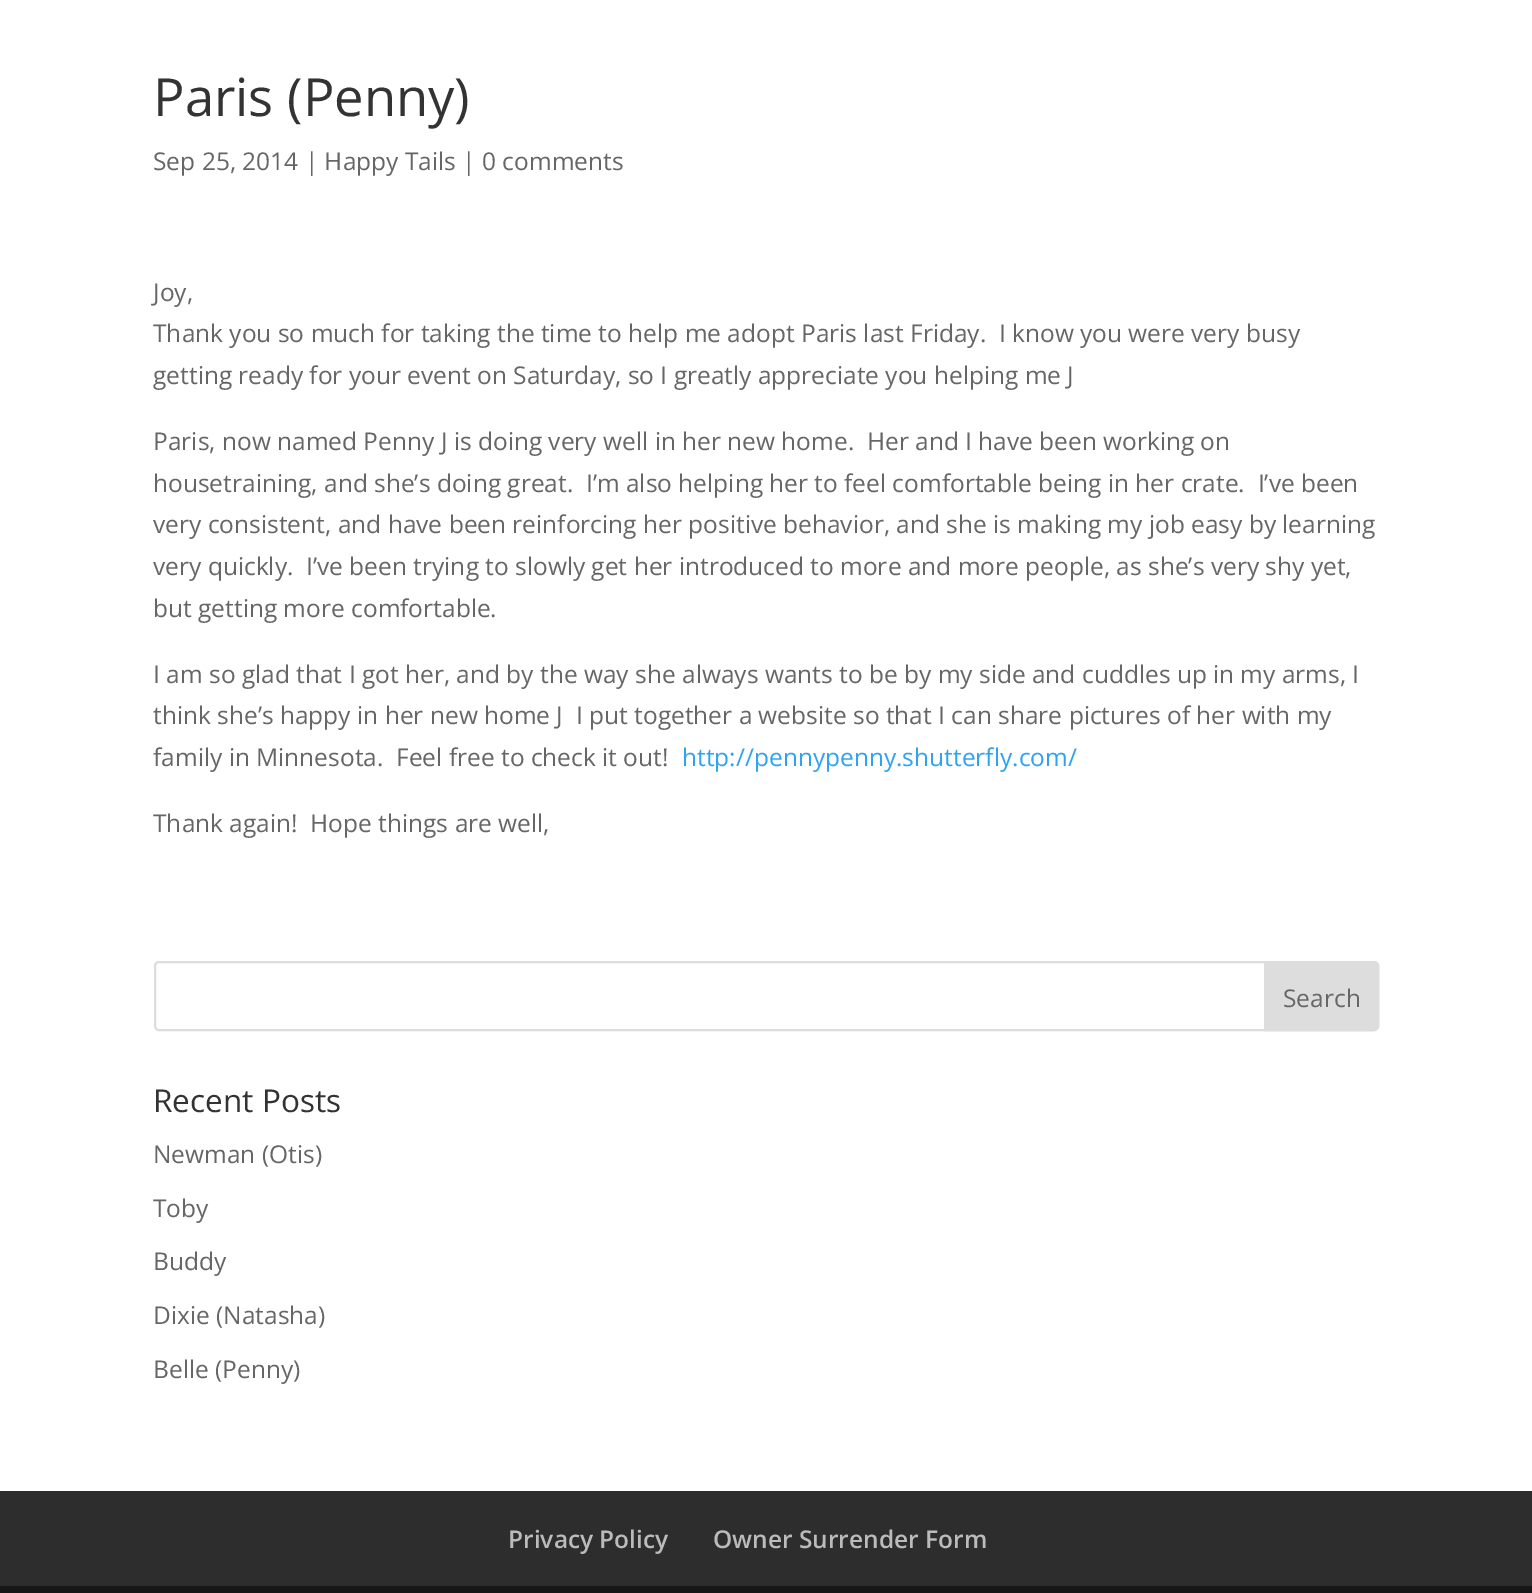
%!PS-Adobe-3.0
%%BoundingBox: 0 0 1532 1593
%%LanguageLevel: 3
%%Pages: 1
%%EndComments
%%BeginProlog
/setink { 3 { 255 div 3 1 roll } repeat setrgbcolor } def
/usefont { [ exch dup neg 0 0 3 -1 roll 0 0 ] selectfont } def
/drawtext { setink usefont moveto show } def
/fillbox { setink rectfill } def
/rrect { 5 dict begin { /r /h /w /y /x } { exch def } forall
  x r add y moveto x w add y 2 copy h add r arct x w add y h add x 1 index r arct
  x y h add x y r arct x y 2 copy exch w add exch r arct closepath end } def
%%EndProlog
%%BeginSetup
<< /PageSize [1532 1593] >> setpagedevice
%%EndSetup
%%Page: 1 1
0 1593 translate 1 -1 scale
4 setmiterlimit
0 0 1532 1593 255 255 255 fillbox
(Paris \(Penny\)) 153 116 /OpenSans-Regular 52.5 51 51 51 drawtext
(Sep 25, 2014 | Happy Tails | 0 comments) 153 170 /OpenSans-Regular 24.5 102 102 102 drawtext
(Joy,) 153 301 /OpenSans-Regular 24.5 102 102 102 drawtext
(Thank you so much for taking the time to help me adopt Paris last Friday.  I know you were very busy) 153 342 /OpenSans-Regular 24.5 102 102 102 drawtext
(getting ready for your event on Saturday, so I greatly appreciate you helping me J) 153 384 /OpenSans-Regular 24.5 102 102 102 drawtext
(Paris, now named Penny J is doing very well in her new home.  Her and I have been working on) 153 450 /OpenSans-Regular 24.5 102 102 102 drawtext
(housetraining, and she’s doing great.  I’m also helping her to feel comfortable being in her crate.  I’ve been) 153 492 /OpenSans-Regular 24.5 102 102 102 drawtext
(very consistent, and have been reinforcing her positive behavior, and she is making my job easy by learning) 153 533 /OpenSans-Regular 24.5 102 102 102 drawtext
(very quickly.  I’ve been trying to slowly get her introduced to more and more people, as she’s very shy yet,) 153 575 /OpenSans-Regular 24.5 102 102 102 drawtext
(but getting more comfortable.) 153 617 /OpenSans-Regular 24.5 102 102 102 drawtext
(I am so glad that I got her, and by the way she always wants to be by my side and cuddles up in my arms, I) 153 683 /OpenSans-Regular 24.5 102 102 102 drawtext
(think she’s happy in her new home J  I put together a website so that I can share pictures of her with my) 153 724 /OpenSans-Regular 24.5 102 102 102 drawtext
(family in Minnesota.  Feel free to check it out!) 153 766 /OpenSans-Regular 24.5 102 102 102 drawtext
(http://pennypenny.shutterfly.com/) 682 766 /OpenSans-Regular 24.5 46 163 242 drawtext
(Thank again!  Hope things are well,) 153 832 /OpenSans-Regular 24.5 102 102 102 drawtext
221 221 221 setink
2 setlinewidth
155 962 1223 68 4 rrect stroke
1265 962 moveto 1374 962 lineto 1376 962 1378 964 1378 966 curveto 1378 1026 lineto 1378 1028 1376 1030 1374 1030 curveto 1265 1030 lineto closepath gsave fill grestore
stroke
(Search) 1283 1007 /OpenSans-Regular 24.5 102 102 102 drawtext
(Recent Posts) 153 1112 /OpenSans-Regular 31.5 51 51 51 drawtext
(Newman \(Otis\)) 153 1163 /OpenSans-Regular 24.5 102 102 102 drawtext
(Toby) 153 1217 /OpenSans-Regular 24.5 102 102 102 drawtext
(Buddy) 153 1270 /OpenSans-Regular 24.5 102 102 102 drawtext
(Dixie \(Natasha\)) 153 1324 /OpenSans-Regular 24.5 102 102 102 drawtext
(Belle \(Penny\)) 153 1378 /OpenSans-Regular 24.5 102 102 102 drawtext
0 1491 1532 95 45 45 45 fillbox
(Privacy Policy) 508 1548 /OpenSans-SemiBold 24.5 187 187 187 drawtext
(Owner Surrender Form) 713 1548 /OpenSans-SemiBold 24.5 187 187 187 drawtext
0 1586 1532 7 23 23 23 fillbox
showpage
%%EOF
